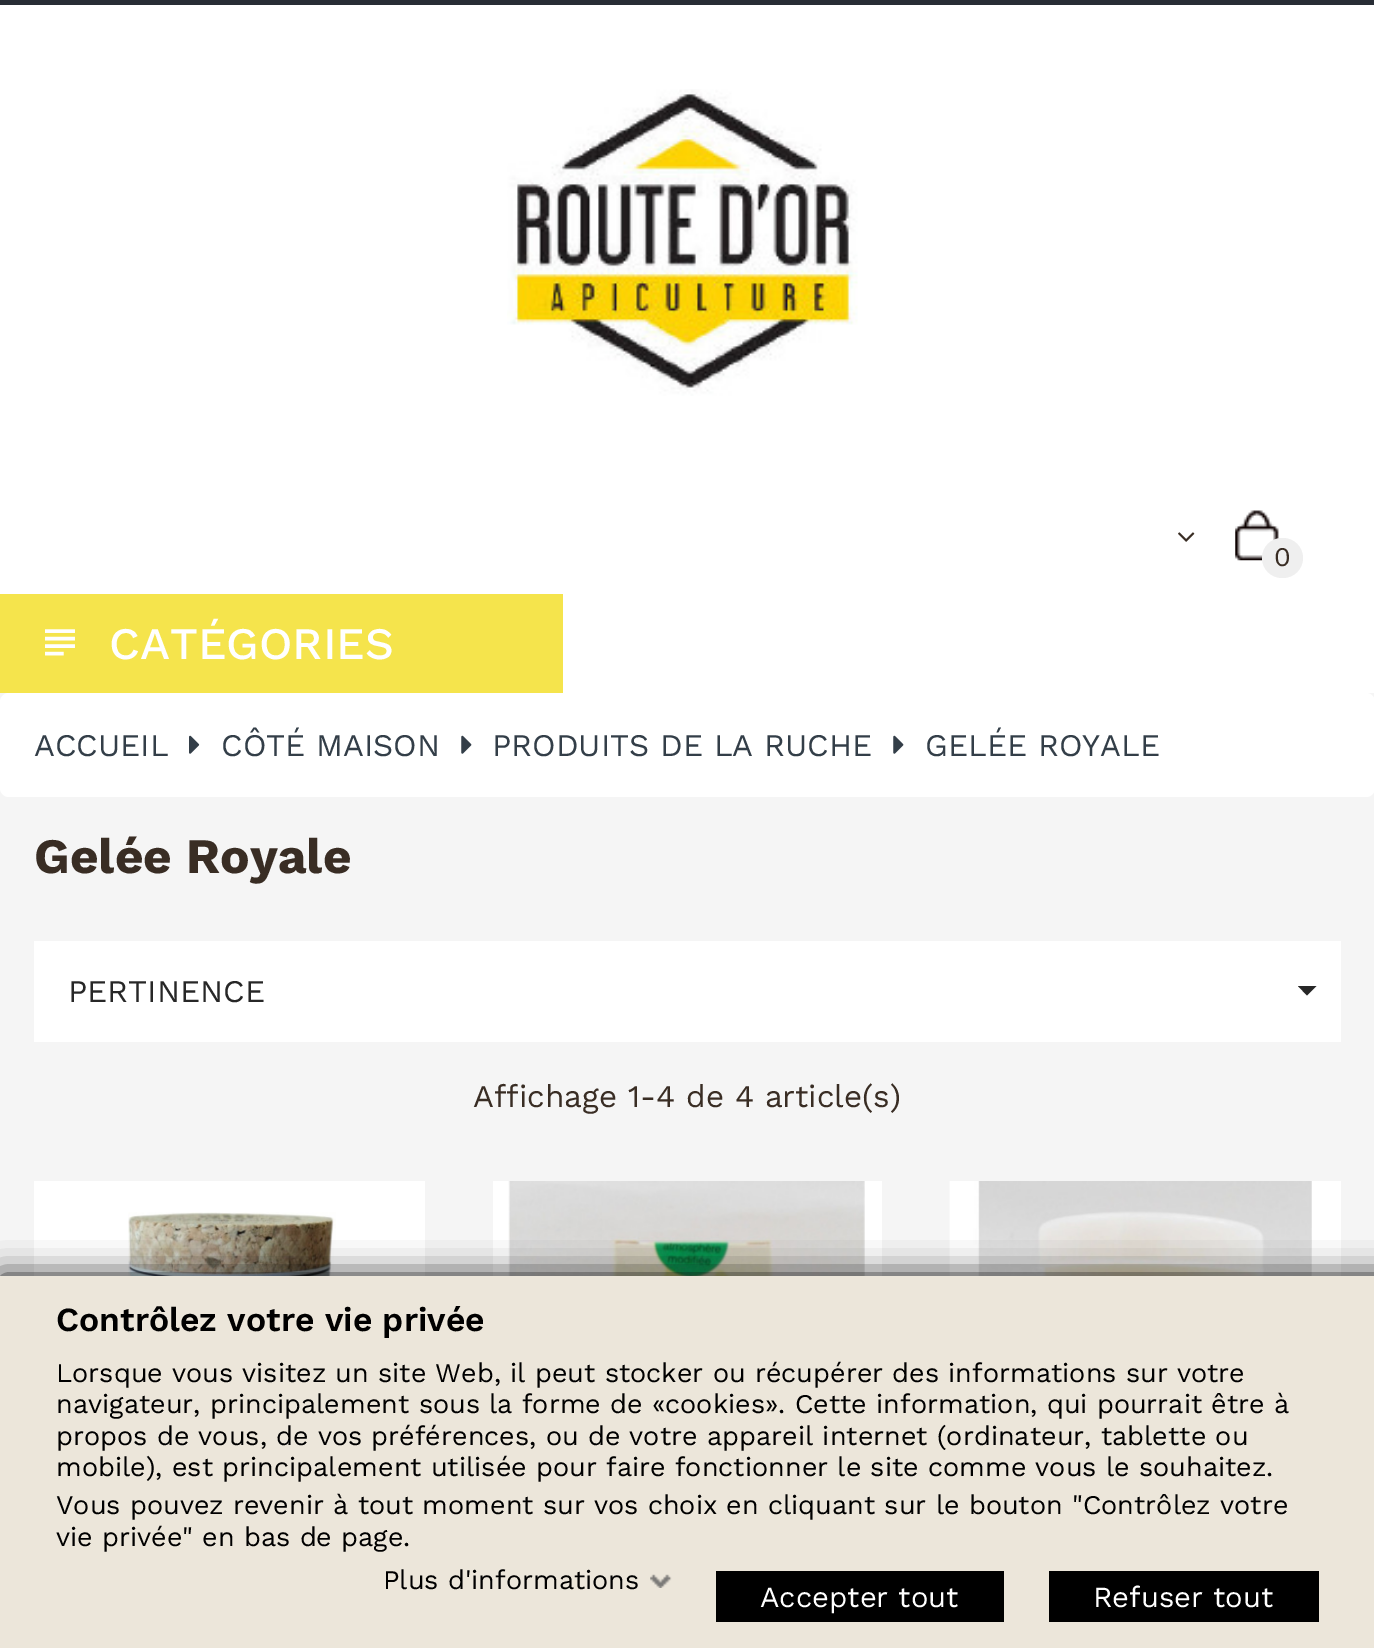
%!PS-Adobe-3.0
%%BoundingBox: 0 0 1374 1648
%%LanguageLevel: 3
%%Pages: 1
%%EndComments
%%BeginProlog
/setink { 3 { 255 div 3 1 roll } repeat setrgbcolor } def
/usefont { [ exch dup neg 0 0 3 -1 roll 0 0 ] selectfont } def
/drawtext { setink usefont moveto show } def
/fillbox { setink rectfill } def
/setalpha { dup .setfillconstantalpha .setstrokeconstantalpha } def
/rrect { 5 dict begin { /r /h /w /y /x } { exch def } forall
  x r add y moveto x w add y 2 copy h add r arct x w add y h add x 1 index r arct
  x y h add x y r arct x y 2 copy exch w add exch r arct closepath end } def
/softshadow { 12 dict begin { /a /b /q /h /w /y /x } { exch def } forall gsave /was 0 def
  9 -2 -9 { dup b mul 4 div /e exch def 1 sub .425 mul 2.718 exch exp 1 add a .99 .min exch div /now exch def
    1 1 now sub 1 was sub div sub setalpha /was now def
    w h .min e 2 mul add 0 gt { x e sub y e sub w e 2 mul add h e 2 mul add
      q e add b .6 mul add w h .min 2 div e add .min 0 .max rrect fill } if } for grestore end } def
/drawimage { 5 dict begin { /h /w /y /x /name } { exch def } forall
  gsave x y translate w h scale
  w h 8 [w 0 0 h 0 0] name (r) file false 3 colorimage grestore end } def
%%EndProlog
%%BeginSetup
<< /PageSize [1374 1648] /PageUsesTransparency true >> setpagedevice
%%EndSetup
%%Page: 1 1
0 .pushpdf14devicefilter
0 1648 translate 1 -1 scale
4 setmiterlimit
0 0 1374 1648 255 255 255 fillbox
0 0 1374 5 40 45 53 fillbox
(assets/img1.rgb) 507 89 351 307 drawimage
(assets/img2.rgb) 1178 532 17 10 drawimage
(assets/img3.rgb) 1235 510 44 51 drawimage
239 239 239 setink
1262 538 41 40 20 rrect fill
(0) 1274 566 /WorkSans-Regular 27 57 45 36 drawtext
0 594 563 99 245 228 76 fillbox
(assets/img4.rgb) 45 629 30 27 drawimage
(CATÉGORIES) 109 659 /WorkSans-Medium 45 255 255 255 drawtext
0 693 1374 583 245 245 245 fillbox
255 255 255 setink
0 693 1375 104 9 rrect fill
(ACCUEIL) 34 756 /WorkSans-Regular 31.5 51 62 72 drawtext
(assets/img5.rgb) 189 735 11 19 drawimage
(CÔTÉ MAISON) 221 756 /WorkSans-Regular 31.5 51 62 72 drawtext
(assets/img6.rgb) 461 735 11 19 drawimage
(PRODUITS DE LA RUCHE) 492 756 /WorkSans-Regular 31.5 51 62 72 drawtext
(assets/img6.rgb) 893 735 11 19 drawimage
(GELÉE ROYALE) 925 756 /WorkSans-Regular 31.5 51 62 72 drawtext
(Gelée Royale) 34 873 /WorkSans-Bold 49.5 57 45 36 drawtext
34 941 1307 101 255 255 255 fillbox
(PERTINENCE) 68 1002 /WorkSans-Regular 31.5 39 39 39 drawtext
1298 986 moveto 1316.5 986 lineto 1307 995.5 lineto closepath fill
(Affichage 1-4 de 4 article\(s\)) 473 1107 /WorkSans-Regular 31.5 57 45 36 drawtext
34 1181 391 95 255 255 255 fillbox
(assets/img7.rgb) 128 1212 208 64 drawimage
493 1181 389 95 255 255 255 fillbox
(assets/img8.rgb) 508 1181 357 95 drawimage
1312 1181 29 95 255 255 255 fillbox
(assets/img9.rgb) 949 1181 363 95 drawimage
18 18 18 setink
0 1276 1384 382 0 16 1 softshadow
0 1276 1374 372 236 230 218 fillbox
(Contrôlez votre vie privée) 56 1331 /WorkSans-SemiBold 33.75 0 0 0 drawtext
(Lorsque vous visitez un site Web, il peut stocker ou récupérer des informations sur votre) 56 1382 /WorkSans-Regular 27 0 0 0 drawtext
(navigateur, principalement sous la forme de «cookies». Cette information, qui pourrait être à) 56 1413 /WorkSans-Regular 27 0 0 0 drawtext
(propos de vous, de vos préférences, ou de votre appareil internet \(ordinateur, tablette ou) 56 1445 /WorkSans-Regular 27 0 0 0 drawtext
(mobile\), est principalement utilisée pour faire fonctionner le site comme vous le souhaitez.) 56 1476 /WorkSans-Regular 27 0 0 0 drawtext
(Vous pouvez revenir à tout moment sur vos choix en cliquant sur le bouton "Contrôlez votre) 56 1514 /WorkSans-Regular 27 0 0 0 drawtext
(vie privée" en bas de page.) 56 1546 /WorkSans-Regular 27 0 0 0 drawtext
(Plus d'informations) 383 1589 /WorkSans-Regular 27 0 0 0 drawtext
(assets/img10.rgb) 650 1574 22 14 drawimage
716 1571 288 51 0 0 0 fillbox
(Accepter tout) 760 1607 /WorkSans-Regular 29.25 255 255 255 drawtext
1049 1571 270 51 0 0 0 fillbox
(Refuser tout) 1093 1607 /WorkSans-Regular 29.25 255 255 255 drawtext
.poppdf14devicefilter showpage
%%EOF
